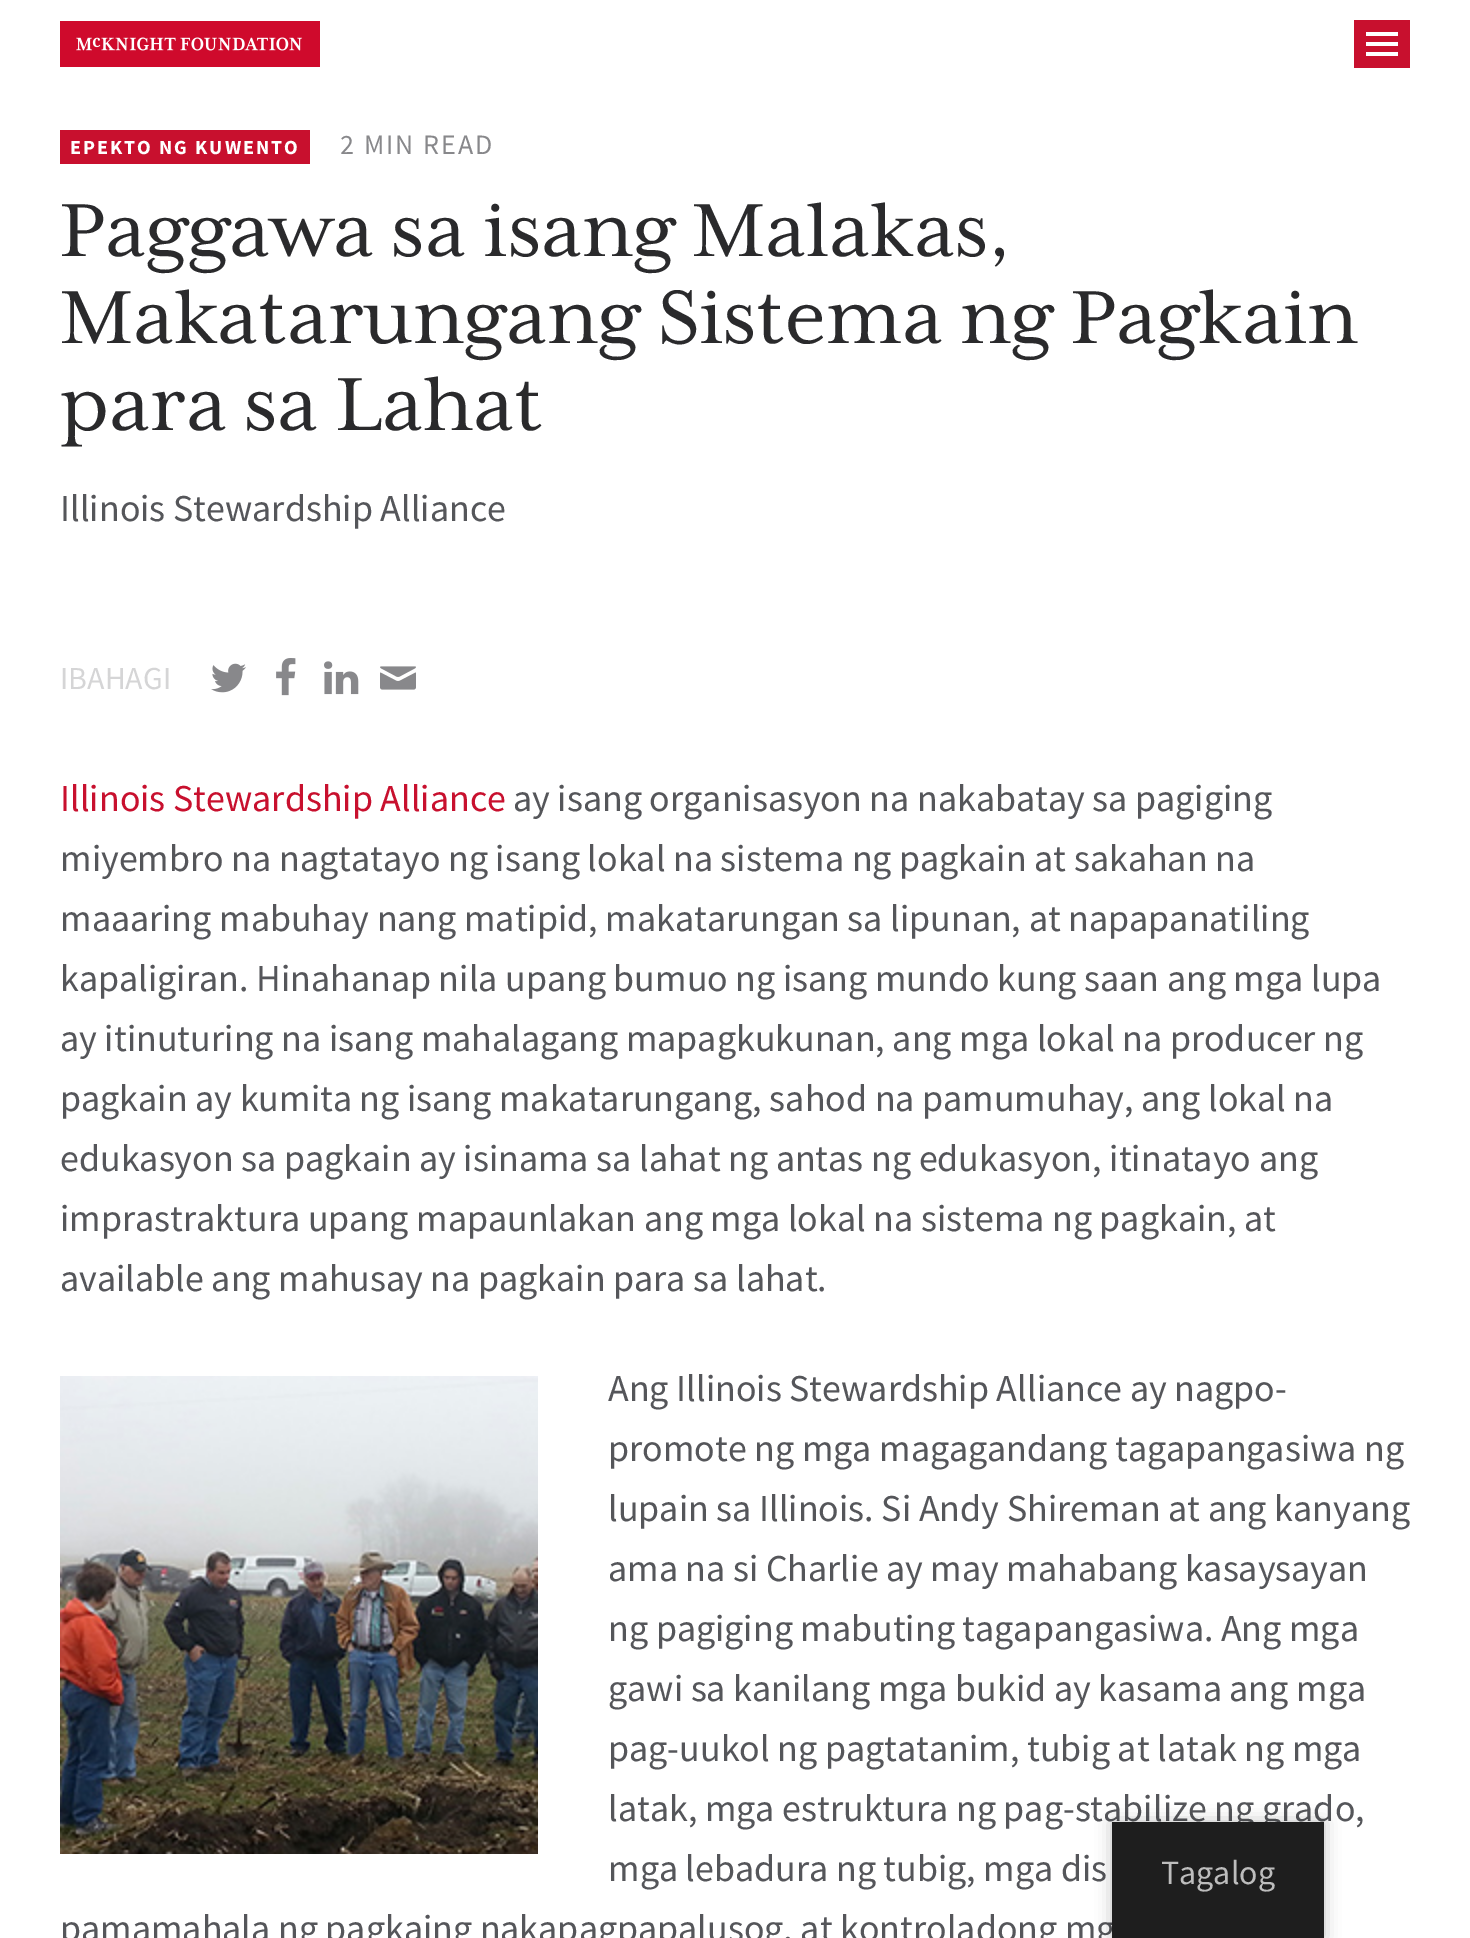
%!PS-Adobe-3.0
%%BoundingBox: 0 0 1470 1938
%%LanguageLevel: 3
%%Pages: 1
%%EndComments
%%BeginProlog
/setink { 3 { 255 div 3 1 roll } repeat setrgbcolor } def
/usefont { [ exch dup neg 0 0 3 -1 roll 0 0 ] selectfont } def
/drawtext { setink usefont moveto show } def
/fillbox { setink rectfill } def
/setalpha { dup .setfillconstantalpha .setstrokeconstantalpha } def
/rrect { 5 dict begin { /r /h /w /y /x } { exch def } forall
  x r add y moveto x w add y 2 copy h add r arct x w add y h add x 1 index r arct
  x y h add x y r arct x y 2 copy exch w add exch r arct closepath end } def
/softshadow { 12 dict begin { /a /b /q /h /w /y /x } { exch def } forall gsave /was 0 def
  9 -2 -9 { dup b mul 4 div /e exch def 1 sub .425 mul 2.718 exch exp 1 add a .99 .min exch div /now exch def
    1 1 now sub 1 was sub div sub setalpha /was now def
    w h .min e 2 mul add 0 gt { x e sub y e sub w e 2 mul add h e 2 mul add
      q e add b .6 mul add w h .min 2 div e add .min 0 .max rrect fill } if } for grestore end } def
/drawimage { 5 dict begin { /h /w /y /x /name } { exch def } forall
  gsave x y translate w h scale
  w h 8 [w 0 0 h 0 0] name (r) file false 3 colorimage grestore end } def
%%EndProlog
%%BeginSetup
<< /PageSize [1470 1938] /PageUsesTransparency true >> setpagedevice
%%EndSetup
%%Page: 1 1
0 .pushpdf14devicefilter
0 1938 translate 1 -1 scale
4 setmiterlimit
0 0 1470 1938 255 255 255 fillbox
(assets/img1.rgb) 60 21 260 46 drawimage
1354 20 56 48 200 16 46 fillbox
1366 32 32 4 255 255 255 fillbox
1366 42 32 4 255 255 255 fillbox
1366 52 32 4 255 255 255 fillbox
60 130 250 34 200 16 46 fillbox
/SourceSansPro-Bold 20 usefont
255 255 255 setink
70 154 moveto 2 0 (EPEKTO NG KUWENTO) ashow
/SourceSansPro-Regular 28 usefont
136 136 139 setink
340 154 moveto 2 0 (2 MIN READ) ashow
(Paggawa sa isang Malakas,) 60 256 /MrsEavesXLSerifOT-Regular 86.1 42 42 44 drawtext
(Makatarungang Sistema ng Pagkain) 60 343 /MrsEavesXLSerifOT-Regular 86.1 42 42 44 drawtext
(para sa Lahat) 60 430 /MrsEavesXLSerifOT-Regular 86.1 42 42 44 drawtext
(Illinois Stewardship Alliance) 60 521 /SourceSansPro-Regular 38 85 86 90 drawtext
(IBAHAGI) 60 689 /SourceSansPro-Regular 32 213 213 214 drawtext
(assets/img2.rgb) 211 663 35 30 drawimage
(assets/img3.rgb) 276 658 20 38 drawimage
(assets/img4.rgb) 324 661 35 34 drawimage
(assets/img5.rgb) 380 666 36 24 drawimage
(Illinois Stewardship Alliance) 60 811 /SourceSansPro-Regular 38 200 16 46 drawtext
(ay isang organisasyon na nakabatay sa pagiging) 513 811 /SourceSansPro-Regular 38 85 86 90 drawtext
(miyembro na nagtatayo ng isang lokal na sistema ng pagkain at sakahan na) 60 871 /SourceSansPro-Regular 38 85 86 90 drawtext
(maaaring mabuhay nang matipid, makatarungan sa lipunan, at napapanatiling) 60 931 /SourceSansPro-Regular 38 85 86 90 drawtext
(kapaligiran. Hinahanap nila upang bumuo ng isang mundo kung saan ang mga lupa) 60 991 /SourceSansPro-Regular 38 85 86 90 drawtext
(ay itinuturing na isang mahalagang mapagkukunan, ang mga lokal na producer ng) 60 1051 /SourceSansPro-Regular 38 85 86 90 drawtext
(pagkain ay kumita ng isang makatarungang, sahod na pamumuhay, ang lokal na) 60 1111 /SourceSansPro-Regular 38 85 86 90 drawtext
(edukasyon sa pagkain ay isinama sa lahat ng antas ng edukasyon, itinatayo ang) 60 1171 /SourceSansPro-Regular 38 85 86 90 drawtext
(imprastraktura upang mapaunlakan ang mga lokal na sistema ng pagkain, at) 60 1231 /SourceSansPro-Regular 38 85 86 90 drawtext
(available ang mahusay na pagkain para sa lahat.) 60 1291 /SourceSansPro-Regular 38 85 86 90 drawtext
(assets/img6.rgb) 60 1376 478 478 drawimage
(Ang Illinois Stewardship Alliance ay nagpo-) 608 1401 /SourceSansPro-Regular 38 85 86 90 drawtext
(promote ng mga magagandang tagapangasiwa ng) 608 1461 /SourceSansPro-Regular 38 85 86 90 drawtext
(lupain sa Illinois. Si Andy Shireman at ang kanyang) 608 1521 /SourceSansPro-Regular 38 85 86 90 drawtext
(ama na si Charlie ay may mahabang kasaysayan) 608 1581 /SourceSansPro-Regular 38 85 86 90 drawtext
(ng pagiging mabuting tagapangasiwa. Ang mga) 608 1641 /SourceSansPro-Regular 38 85 86 90 drawtext
(gawi sa kanilang mga bukid ay kasama ang mga) 608 1701 /SourceSansPro-Regular 38 85 86 90 drawtext
(pag-uukol ng pagtatanim, tubig at latak ng mga) 608 1761 /SourceSansPro-Regular 38 85 86 90 drawtext
(latak, mga estruktura ng pag-stabilize ng grado,) 608 1821 /SourceSansPro-Regular 38 85 86 90 drawtext
(mga lebadura ng tubig, mga dis) 608 1881 /SourceSansPro-Regular 38 85 86 90 drawtext
(pamamahala ng pagkaing nakapagpapalusog, at kontroladong mg) 60 1941 /SourceSansPro-Regular 38 85 86 90 drawtext
0 0 0 setink
1112 1822 212 116 0 8 0.25 softshadow
1112 1822 212 116 30 30 30 fillbox
(Tagalog) 1161 1884 /SourceSansPro-Regular 34 189 189 189 drawtext
.poppdf14devicefilter showpage
%%EOF
